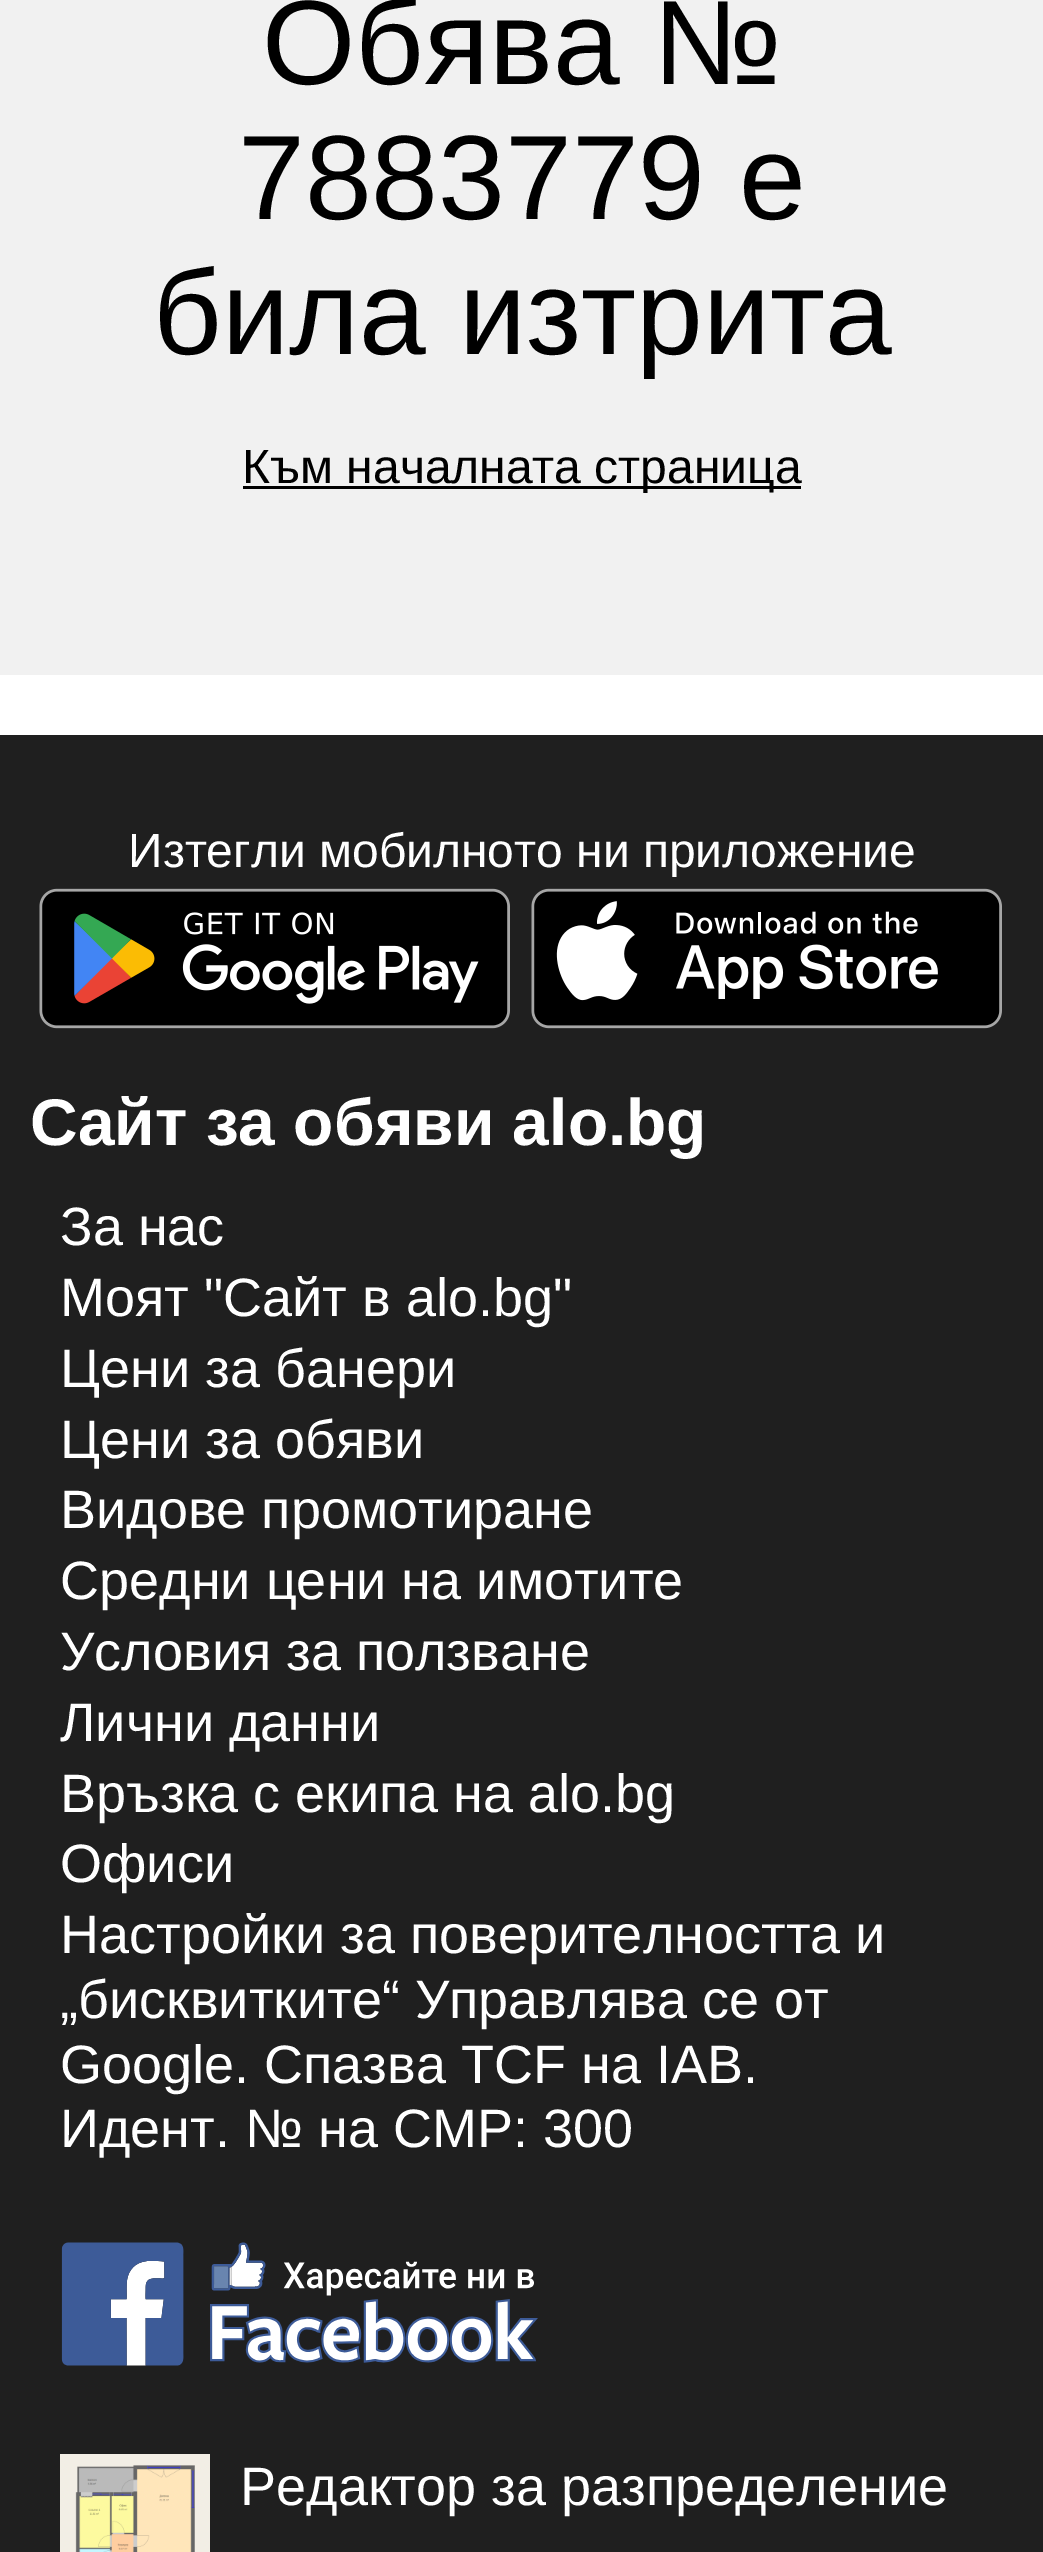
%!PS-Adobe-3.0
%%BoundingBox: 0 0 1043 2552
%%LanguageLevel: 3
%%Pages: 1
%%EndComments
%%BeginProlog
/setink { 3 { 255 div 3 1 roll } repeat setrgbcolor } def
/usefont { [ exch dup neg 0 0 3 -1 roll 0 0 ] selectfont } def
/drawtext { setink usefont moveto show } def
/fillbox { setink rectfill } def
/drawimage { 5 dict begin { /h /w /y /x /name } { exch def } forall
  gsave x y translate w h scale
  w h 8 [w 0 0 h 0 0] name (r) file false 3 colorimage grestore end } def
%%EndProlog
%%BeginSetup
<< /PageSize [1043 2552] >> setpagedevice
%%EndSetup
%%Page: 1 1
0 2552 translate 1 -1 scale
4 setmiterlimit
0 0 1043 2552 255 255 255 fillbox
0 0 1043 675 241 241 241 fillbox
(Обява №) 262 84 /LiberationSans-Regular 120 0 0 0 drawtext
(7883779 е) 238 219 /LiberationSans-Regular 120 0 0 0 drawtext
(била изтрита) 153 354 /LiberationSans-Regular 120 0 0 0 drawtext
243 486 558 3 0 0 0 fillbox
(Към началната страница) 242 483 /LiberationSans-Regular 48 0 0 0 drawtext
0 735 1043 1817 31 31 31 fillbox
(Изтегли мобилното ни приложение) 128 867 /LiberationSans-Regular 48 255 255 255 drawtext
(assets/img1.rgb) 39 888 471 141 drawimage
(assets/img2.rgb) 531 888 471 141 drawimage
(Сайт за обяви alo.bg) 30 1145 /LiberationSans-Bold 66 255 255 255 drawtext
(За нас) 60 1245 /LiberationSans-Regular 54 255 255 255 drawtext
(Моят "Сайт в alo.bg") 60 1316 /LiberationSans-Regular 54 255 255 255 drawtext
(Цени за банери) 60 1387 /LiberationSans-Regular 54 255 255 255 drawtext
(Цени за обяви) 60 1458 /LiberationSans-Regular 54 255 255 255 drawtext
(Видове промотиране) 60 1528 /LiberationSans-Regular 54 255 255 255 drawtext
(Средни цени на имотите) 60 1599 /LiberationSans-Regular 54 255 255 255 drawtext
(Условия за ползване) 60 1670 /LiberationSans-Regular 54 255 255 255 drawtext
(Лични данни) 60 1741 /LiberationSans-Regular 54 255 255 255 drawtext
(Връзка с екипa на alo.bg) 60 1812 /LiberationSans-Regular 54 255 255 255 drawtext
(Офиси) 60 1882 /LiberationSans-Regular 54 255 255 255 drawtext
(Настройки за поверителността и) 60 1953 /LiberationSans-Regular 54 255 255 255 drawtext
(„бисквитките“ Управлява се от) 60 2018 /LiberationSans-Regular 54 255 255 255 drawtext
(Google. Спазва TCF на IAB.) 60 2083 /LiberationSans-Regular 54 255 255 255 drawtext
(Идент. № на CMP: 300) 60 2147 /LiberationSans-Regular 54 255 255 255 drawtext
(assets/img3.rgb) 61 2242 477 124 drawimage
(assets/img4.rgb) 60 2454 150 98 drawimage
(Редактор за разпределение) 240 2505 /LiberationSans-Regular 54 255 255 255 drawtext
showpage
%%EOF
